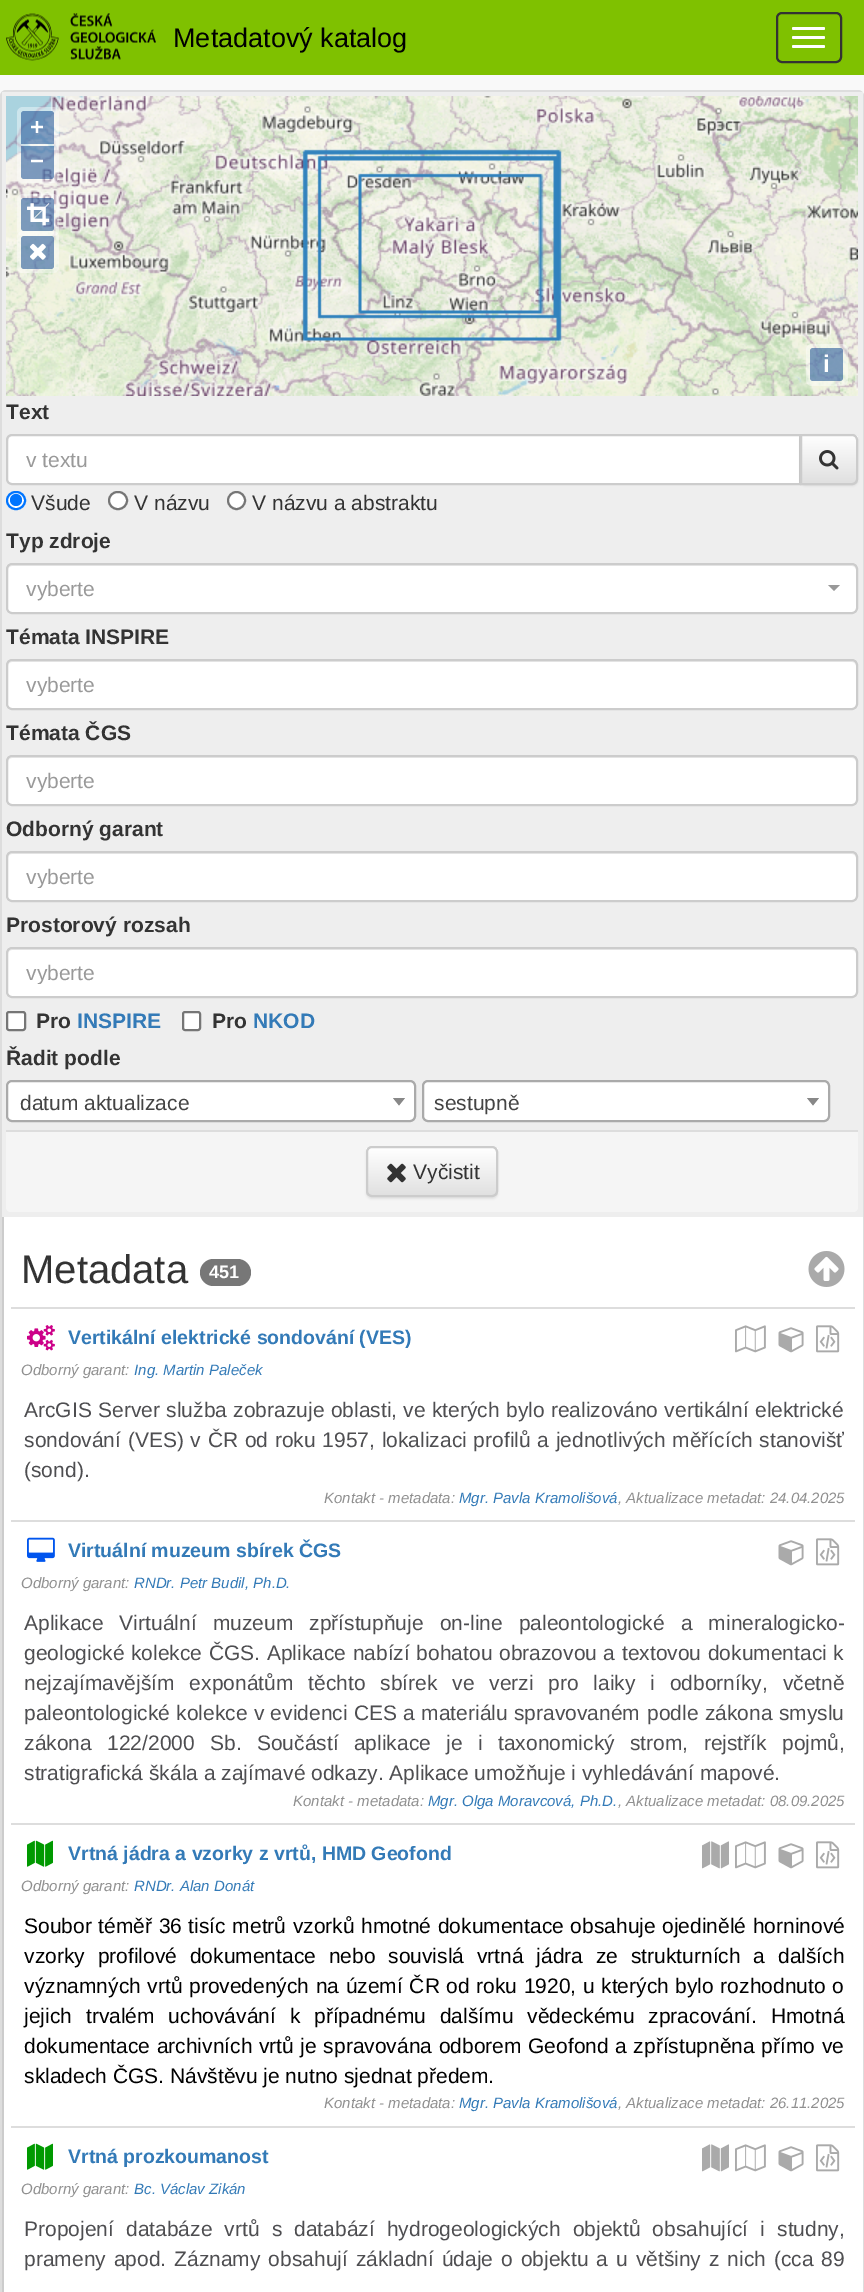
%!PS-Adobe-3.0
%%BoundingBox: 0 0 864 2292
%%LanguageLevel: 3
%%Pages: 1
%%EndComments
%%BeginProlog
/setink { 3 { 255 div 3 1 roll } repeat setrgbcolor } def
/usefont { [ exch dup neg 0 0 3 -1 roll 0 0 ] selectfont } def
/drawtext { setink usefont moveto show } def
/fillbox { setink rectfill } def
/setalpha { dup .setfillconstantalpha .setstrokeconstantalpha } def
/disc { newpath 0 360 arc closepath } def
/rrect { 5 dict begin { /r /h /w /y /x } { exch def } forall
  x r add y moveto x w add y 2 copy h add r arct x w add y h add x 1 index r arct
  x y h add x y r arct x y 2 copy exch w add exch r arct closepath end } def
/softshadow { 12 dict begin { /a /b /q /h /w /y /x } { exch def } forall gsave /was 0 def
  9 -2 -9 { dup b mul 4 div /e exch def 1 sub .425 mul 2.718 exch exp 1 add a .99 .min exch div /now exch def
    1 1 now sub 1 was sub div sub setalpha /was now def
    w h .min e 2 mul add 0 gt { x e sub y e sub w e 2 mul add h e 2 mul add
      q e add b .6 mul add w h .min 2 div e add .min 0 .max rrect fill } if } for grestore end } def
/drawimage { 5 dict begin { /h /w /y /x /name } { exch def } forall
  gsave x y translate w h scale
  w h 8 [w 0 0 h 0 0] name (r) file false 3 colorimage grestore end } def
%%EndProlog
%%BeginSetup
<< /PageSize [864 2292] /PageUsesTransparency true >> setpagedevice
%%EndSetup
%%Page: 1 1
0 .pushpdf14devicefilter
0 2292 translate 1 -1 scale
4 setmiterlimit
0 0 864 2292 249 249 249 fillbox
0 0 864 75 127 193 0 fillbox
(assets/img1.rgb) 6 13 150 48 drawimage
(Metadatový katalog) 173 47 /LiberationSans-Regular 27 0 0 0 drawtext
51 51 51 setink
2 setlinewidth
777 13 64 49 5 rrect stroke
255 255 255 setink
792 27 33 3 1.5 rrect fill
792 36 33 3 1.5 rrect fill
792 45 33 3 1.5 rrect fill
221 221 221 setink
1 91 862 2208 5 rrect stroke
2 92 861 1125 238 238 238 fillbox
(assets/img2.rgb) 6 96 852 300 drawimage
0.4 setalpha
255 255 255 setink
17 107 42 76 6 rrect fill
0.5 setalpha
0 60 136 setink
24 111 moveto 51 111 lineto 52.5 111 54 112.5 54 114 curveto 54 144 lineto 21 144 lineto 21 114 lineto 21 112.5 22.5 111 24 111 curveto closepath fill
1 setalpha
(+) 30 135 /LiberationSans-Bold 24 255 255 255 drawtext
0.5 setalpha
0 60 136 setink
21 146 moveto 54 146 lineto 54 176 lineto 54 177.5 52.5 179 51 179 curveto 24 179 lineto 22.5 179 21 177.5 21 176 curveto closepath fill
1 setalpha
(−) 30 169 /LiberationSans-Bold 24 255 255 255 drawtext
0.4 setalpha
17 194 42 42 6 rrect fill
0.5 setalpha
0 60 136 setink
21 198 33 33 3 rrect fill
1 setalpha
(assets/img3.rgb) 27 203 23 23 drawimage
0.4 setalpha
255 255 255 setink
17 231 42 42 6 rrect fill
0.5 setalpha
0 60 136 setink
21 236 33 33 3 rrect fill
1 setalpha
(assets/img4.rgb) 30 243 16 17 drawimage
0.4 setalpha
255 255 255 setink
806 344 42 42 6 rrect fill
0.5 setalpha
0 60 136 setink
810 348 33 33 3 rrect fill
1 setalpha
(i) 823 372 /LiberationSans-Bold 24 255 255 255 drawtext
(Text) 6 419 /LiberationSans-Bold 21 51 51 51 drawtext
255 255 255 setink
12 434 moveto 801 434 lineto 801 485 lineto 12 485 lineto 8.5 485 6 482.5 6 479 curveto 6 440 lineto 6 436.5 8.5 434 12 434 curveto closepath fill
236 236 236 setink
12 436 moveto 800 436 lineto 800 435 lineto 13 435 lineto 10 435 8 437 8 440 curveto 8 441 lineto 8 439 10 436 12 436 curveto closepath fill
204 204 204 setink
12 435 moveto 800 435 lineto 800 484 lineto 12 484 lineto 9 484 7 482 7 479 curveto 7 440 lineto 7 437 9 435 12 435 curveto closepath stroke
(v textu) 26 467 /LiberationSans-Regular 21 153 153 153 drawtext
0 0 0 setink
800 435 58 51 6 1 0.07 softshadow
gsave
800 434 moveto 852 434 lineto 855.5 434 858 436.5 858 440 curveto 858 479 lineto 858 482.5 855.5 485 852 485 curveto 800 485 lineto closepath clip newpath
gsave 802 435 moveto 858 435 lineto 858 483 lineto 802 483 lineto closepath clip newpath
<< /ShadingType 2 /ColorSpace /DeviceRGB /Coords [829 435 829 483] /Extend [true true] /Function << /FunctionType 2 /Domain [0 1] /C0 [1 1 1] /C1 [0.878 0.878 0.878] /N 1 >> >> shfill grestore
grestore
0.15 setalpha
255 255 255 setink
801 436 moveto 853 436 lineto 857 438 856 445 856 448 curveto 856 481 lineto 857 480 857 479 857 478 curveto 857 440 lineto 857 437 855 435 852 435 curveto 801 435 lineto closepath fill
1 setalpha
204 204 204 setink
801 435 moveto 852 435 lineto 855 435 857 437 857 440 curveto 857 479 lineto 857 482 855 484 852 484 curveto 801 484 lineto closepath stroke
(assets/img5.rgb) 819 450 20 20 drawimage
255 255 255 setink
7 492 18 17 8.5 rrect gsave fill grestore
0 117 255 setink
stroke
16 500 6 disc fill
(Všude) 31 510 /LiberationSans-Regular 21 51 51 51 drawtext
255 255 255 setink
109 492 18 17 8.5 rrect gsave fill grestore
118 118 118 setink
stroke
(V názvu) 134 510 /LiberationSans-Regular 21 51 51 51 drawtext
255 255 255 setink
236.5 500.5 8.5 disc gsave fill grestore
118 118 118 setink
stroke
(V názvu a abstraktu) 252 510 /LiberationSans-Regular 21 51 51 51 drawtext
(Typ zdroje) 6 548 /LiberationSans-Bold 21 51 51 51 drawtext
255 255 255 setink
6 563 852 51 6 rrect fill
236 236 236 setink
12 566 moveto 852 566 lineto 854 566 856 568 856 570 curveto 856 610 lineto 857 609 857 608 857 607 curveto 857 569 lineto 857 566 855 564 852 564 curveto 13 564 lineto 10 564 8 566 8 569 curveto 8 570 lineto 8 568 10 566 12 566 curveto closepath fill
204 204 204 setink
7 564 850 49 5 rrect stroke
(vyberte) 26 596 /LiberationSans-Regular 21 153 153 153 drawtext
828 585 moveto 840 585 lineto 834 591 lineto closepath fill
(Témata INSPIRE) 6 644 /LiberationSans-Bold 21 51 51 51 drawtext
255 255 255 setink
6 659 852 51 6 rrect fill
236 236 236 setink
12 662 moveto 852 662 lineto 854 662 856 664 856 666 curveto 856 706 lineto 857 705 857 704 857 703 curveto 857 665 lineto 857 662 855 660 852 660 curveto 13 660 lineto 10 660 8 662 8 665 curveto 8 666 lineto 8 664 10 662 12 662 curveto closepath fill
204 204 204 setink
7 660 850 49 5 rrect stroke
gsave
26 672 807 24 rectclip
(vyberte) 26 692 /LiberationSans-Regular 21 153 153 153 drawtext
grestore
(Témata ČGS) 6 740 /LiberationSans-Bold 21 51 51 51 drawtext
255 255 255 setink
6 755 852 51 6 rrect fill
236 236 236 setink
12 758 moveto 852 758 lineto 854 758 856 760 856 762 curveto 856 802 lineto 857 801 857 800 857 799 curveto 857 761 lineto 857 758 855 756 852 756 curveto 13 756 lineto 10 756 8 758 8 761 curveto 8 762 lineto 8 760 10 758 12 758 curveto closepath fill
204 204 204 setink
7 756 850 49 5 rrect stroke
gsave
26 768 807 24 rectclip
(vyberte) 26 788 /LiberationSans-Regular 21 153 153 153 drawtext
grestore
(Odborný garant) 6 836 /LiberationSans-Bold 21 51 51 51 drawtext
255 255 255 setink
6 851 852 51 6 rrect fill
236 236 236 setink
12 854 moveto 852 854 lineto 854 854 856 856 856 858 curveto 856 898 lineto 857 897 857 896 857 895 curveto 857 857 lineto 857 854 855 852 852 852 curveto 13 852 lineto 10 852 8 854 8 857 curveto 8 858 lineto 8 856 10 854 12 854 curveto closepath fill
204 204 204 setink
7 852 850 49 5 rrect stroke
gsave
26 864 807 24 rectclip
(vyberte) 26 884 /LiberationSans-Regular 21 153 153 153 drawtext
grestore
(Prostorový rozsah) 6 932 /LiberationSans-Bold 21 51 51 51 drawtext
255 255 255 setink
6 947 852 51 6 rrect fill
236 236 236 setink
12 950 moveto 852 950 lineto 854 950 856 952 856 954 curveto 856 994 lineto 857 993 857 992 857 991 curveto 857 953 lineto 857 950 855 948 852 948 curveto 13 948 lineto 10 948 8 950 8 953 curveto 8 954 lineto 8 952 10 950 12 950 curveto closepath fill
204 204 204 setink
7 948 850 49 5 rrect stroke
gsave
26 960 807 24 rectclip
(vyberte) 26 980 /LiberationSans-Regular 21 153 153 153 drawtext
grestore
255 255 255 setink
7 1012 18 18 2 rrect gsave fill grestore
118 118 118 setink
stroke
(Pro) 36 1028 /LiberationSans-Bold 21 51 51 51 drawtext
(INSPIRE) 77 1028 /LiberationSans-Bold 21 51 122 183 drawtext
255 255 255 setink
183 1012 17 18 2 rrect gsave fill grestore
118 118 118 setink
stroke
(Pro) 212 1028 /LiberationSans-Bold 21 51 51 51 drawtext
(NKOD) 253 1028 /LiberationSans-Bold 21 51 122 183 drawtext
(Řadit podle) 6 1065 /LiberationSans-Bold 21 51 51 51 drawtext
255 255 255 setink
7 1081 408 40 5 rrect gsave fill grestore
170 170 170 setink
stroke
(datum aktualizace) 20 1110 /LiberationSans-Regular 21 68 68 68 drawtext
136 136 136 setink
393 1098 moveto 405 1098 lineto 399 1105.5 lineto closepath fill
255 255 255 setink
423 1081 406 40 5 rrect gsave fill grestore
170 170 170 setink
stroke
(sestupně) 434 1110 /LiberationSans-Regular 21 68 68 68 drawtext
136 136 136 setink
807 1098 moveto 819 1098 lineto 813 1105.5 lineto closepath fill
245 245 245 setink
6 1130 moveto 858 1130 lineto 858 1207 lineto 858 1210 856 1212 853 1212 curveto 11 1212 lineto 8 1212 6 1210 6 1207 curveto closepath fill
6 1130 852 2 221 221 221 fillbox
0 0 0 setink
366 1148 132 51 6 1 0.07 softshadow
gsave
366 1146 132 51 6 rrect clip newpath
gsave 366 1148 moveto 498 1148 lineto 498 1196 lineto 366 1196 lineto closepath clip newpath
<< /ShadingType 2 /ColorSpace /DeviceRGB /Coords [432 1148 432 1196] /Extend [true true] /Function << /FunctionType 2 /Domain [0 1] /C0 [1 1 1] /C1 [0.878 0.878 0.878] /N 1 >> >> shfill grestore
grestore
0.15 setalpha
255 255 255 setink
372 1149 moveto 492 1149 lineto 494 1149 496 1151 496 1154 curveto 496 1192 lineto 495 1195 lineto 496 1194 497 1192 497 1191 curveto 497 1153 lineto 497 1150 495 1148 492 1148 curveto 373 1148 lineto 370 1148 368 1150 368 1153 curveto 368 1154 lineto 368 1151 370 1149 372 1149 curveto closepath fill
1 setalpha
204 204 204 setink
367 1147 130 49 5 rrect stroke
(assets/img6.rgb) 387 1163 19 20 drawimage
(Vyčistit) 413 1179 /LiberationSans-Regular 21 51 51 51 drawtext
4 1217 859 1075 255 255 255 fillbox
2 1217 2 1075 204 204 204 fillbox
(Metadata) 21 1283 /LiberationSans-Regular 40 51 51 51 drawtext
119 119 119 setink
200 1259 51 27 13.5 rrect fill
(451) 209 1278 /LiberationSans-Bold 18 255 255 255 drawtext
(assets/img7.rgb) 808 1251 37 36 drawimage
11 1307 844 2 221 221 221 fillbox
(assets/img8.rgb) 27 1325 28 26 drawimage
(Vertikální elektrické sondování \(VES\)) 68 1344 /LiberationSans-Bold 19.5 51 122 183 drawtext
(assets/img9.rgb) 735 1325 31 28 drawimage
(assets/img10.rgb) 778 1327 26 26 drawimage
(assets/img11.rgb) 816 1325 24 28 drawimage
(Odborný garant:) 21 1375 /LiberationSans-Italic 15 144 144 144 drawtext
(Ing. Martin Paleček) 134 1375 /LiberationSans-Italic 15 51 122 183 drawtext
/LiberationSans-Regular 21 usefont
78 78 81 setink
24 1417 moveto 0.5 0 32 (ArcGIS Server služba zobrazuje oblasti, ve kterých bylo realizováno vertikální elektrické) widthshow
24 1447 moveto 0.9 0 32 (sondování \(VES\) v ČR od roku 1957, lokalizaci profilů a jednotlivých měřících stanovišť) widthshow
(\(sond\).) 24 1477 /LiberationSans-Regular 21 78 78 81 drawtext
(Kontakt - metadata:) 324 1503 /LiberationSans-Italic 15 144 144 144 drawtext
(Mgr. Pavla Kramolišová) 459 1503 /LiberationSans-Italic 15 51 122 183 drawtext
(, Aktualizace metadat: 24.04.2025) 618 1503 /LiberationSans-Italic 15 144 144 144 drawtext
11 1520 844 2 221 221 221 fillbox
(assets/img12.rgb) 27 1537 28 25 drawimage
(Virtuální muzeum sbírek ČGS) 68 1557 /LiberationSans-Bold 19.5 51 122 183 drawtext
(assets/img10.rgb) 778 1540 26 26 drawimage
(assets/img11.rgb) 816 1538 24 28 drawimage
(Odborný garant:) 21 1588 /LiberationSans-Italic 15 144 144 144 drawtext
(RNDr. Petr Budil, Ph.D.) 134 1588 /LiberationSans-Italic 15 51 122 183 drawtext
/LiberationSans-Regular 21 usefont
78 78 81 setink
24 1630 moveto 10.25 0 32 (Aplikace Virtuální muzeum zpřístupňuje on-line paleontologické a mineralogicko-) widthshow
24 1660 moveto 0.75 0 32 (geologické kolekce ČGS. Aplikace nabízí bohatou obrazovou a textovou dokumentaci k) widthshow
24 1690 moveto 9 0 32 (nejzajímavějším exponátům těchto sbírek ve verzi pro laiky i odborníky, včetně) widthshow
(paleontologické) 24 1720 /LiberationSans-Regular 21 78 78 81 drawtext
176 1720 moveto 0.5 0 32 (kolekce v evidenci CES a materiálu spravovaném) widthshow
647 1720 moveto 0.5 0 32 (podle zákona smyslu) widthshow
24 1750 moveto 9.5 0 32 (zákona 122/2000 Sb. Součástí aplikace je i taxonomický strom, rejstřík pojmů,) widthshow
(stratigrafická škála a zajímavé odkazy. Aplikace umožňuje i vyhledávání mapové.) 24 1780 /LiberationSans-Regular 21 78 78 81 drawtext
(Kontakt - metadata:) 293 1806 /LiberationSans-Italic 15 144 144 144 drawtext
(Mgr. Olga Moravcová, Ph.D.) 428 1806 /LiberationSans-Italic 15 51 122 183 drawtext
(, Aktualizace metadat: 08.09.2025) 618 1806 /LiberationSans-Italic 15 144 144 144 drawtext
11 1823 844 2 221 221 221 fillbox
(assets/img13.rgb) 27 1840 26 27 drawimage
(Vrtná jádra a vzorky z vrtů, HMD Geofond) 68 1860 /LiberationSans-Bold 19.5 51 122 183 drawtext
(assets/img14.rgb) 702 1841 27 28 drawimage
(assets/img9.rgb) 735 1841 31 28 drawimage
(assets/img10.rgb) 778 1843 26 26 drawimage
(assets/img11.rgb) 816 1841 24 28 drawimage
(Odborný garant:) 21 1891 /LiberationSans-Italic 15 144 144 144 drawtext
(RNDr. Alan Donát) 134 1891 /LiberationSans-Italic 15 51 122 183 drawtext
/LiberationSans-Regular 21 usefont
0 0 0 setink
24 1933 moveto 0.75 0 32 (Soubor téměř 36 tisíc metrů vzorků hmotné dokumentace obsahuje ojedinělé horninové) widthshow
24 1963 moveto 7 0 32 (vzorky profilové dokumentace nebo souvislá vrtná jádra ze strukturních a dalších) widthshow
24 1993 moveto 0.75 0 32 (významných vrtů provedených na území ČR od roku 1920, u kterých bylo rozhodnuto o) widthshow
24 2023 moveto 8 0 32 (jejich trvalém uchovávání k případnému dalšímu vědeckému zpracování. Hmotná) widthshow
24 2053 moveto 0.75 0 32 (dokumentace archivních vrtů je spravována odborem Geofond a zpřístupněna přímo ve) widthshow
(skladech ČGS. Návštěvu je nutno sjednat předem.) 24 2083 /LiberationSans-Regular 21 0 0 0 drawtext
(Kontakt - metadata:) 324 2108 /LiberationSans-Italic 15 144 144 144 drawtext
(Mgr. Pavla Kramolišová) 459 2108 /LiberationSans-Italic 15 51 122 183 drawtext
(, Aktualizace metadat: 26.11.2025) 618 2108 /LiberationSans-Italic 15 144 144 144 drawtext
11 2126 844 2 221 221 221 fillbox
(assets/img13.rgb) 27 2143 26 27 drawimage
(Vrtná prozkoumanost) 68 2163 /LiberationSans-Bold 19.5 51 122 183 drawtext
(assets/img14.rgb) 702 2144 27 28 drawimage
(assets/img9.rgb) 735 2144 31 28 drawimage
(assets/img10.rgb) 778 2146 26 26 drawimage
(assets/img11.rgb) 816 2144 24 28 drawimage
(Odborný garant:) 21 2194 /LiberationSans-Italic 15 144 144 144 drawtext
(Bc. Václav Zikán) 134 2194 /LiberationSans-Italic 15 51 122 183 drawtext
/LiberationSans-Regular 21 usefont
78 78 81 setink
24 2236 moveto 6.25 0 32 (Propojení databáze vrtů s databází hydrogeologických objektů obsahující i studny,) widthshow
24 2266 moveto 2.1 0 32 (prameny apod. Záznamy obsahují základní údaje o objektu a u většiny z nich \(cca 89) widthshow
.poppdf14devicefilter showpage
%%EOF
